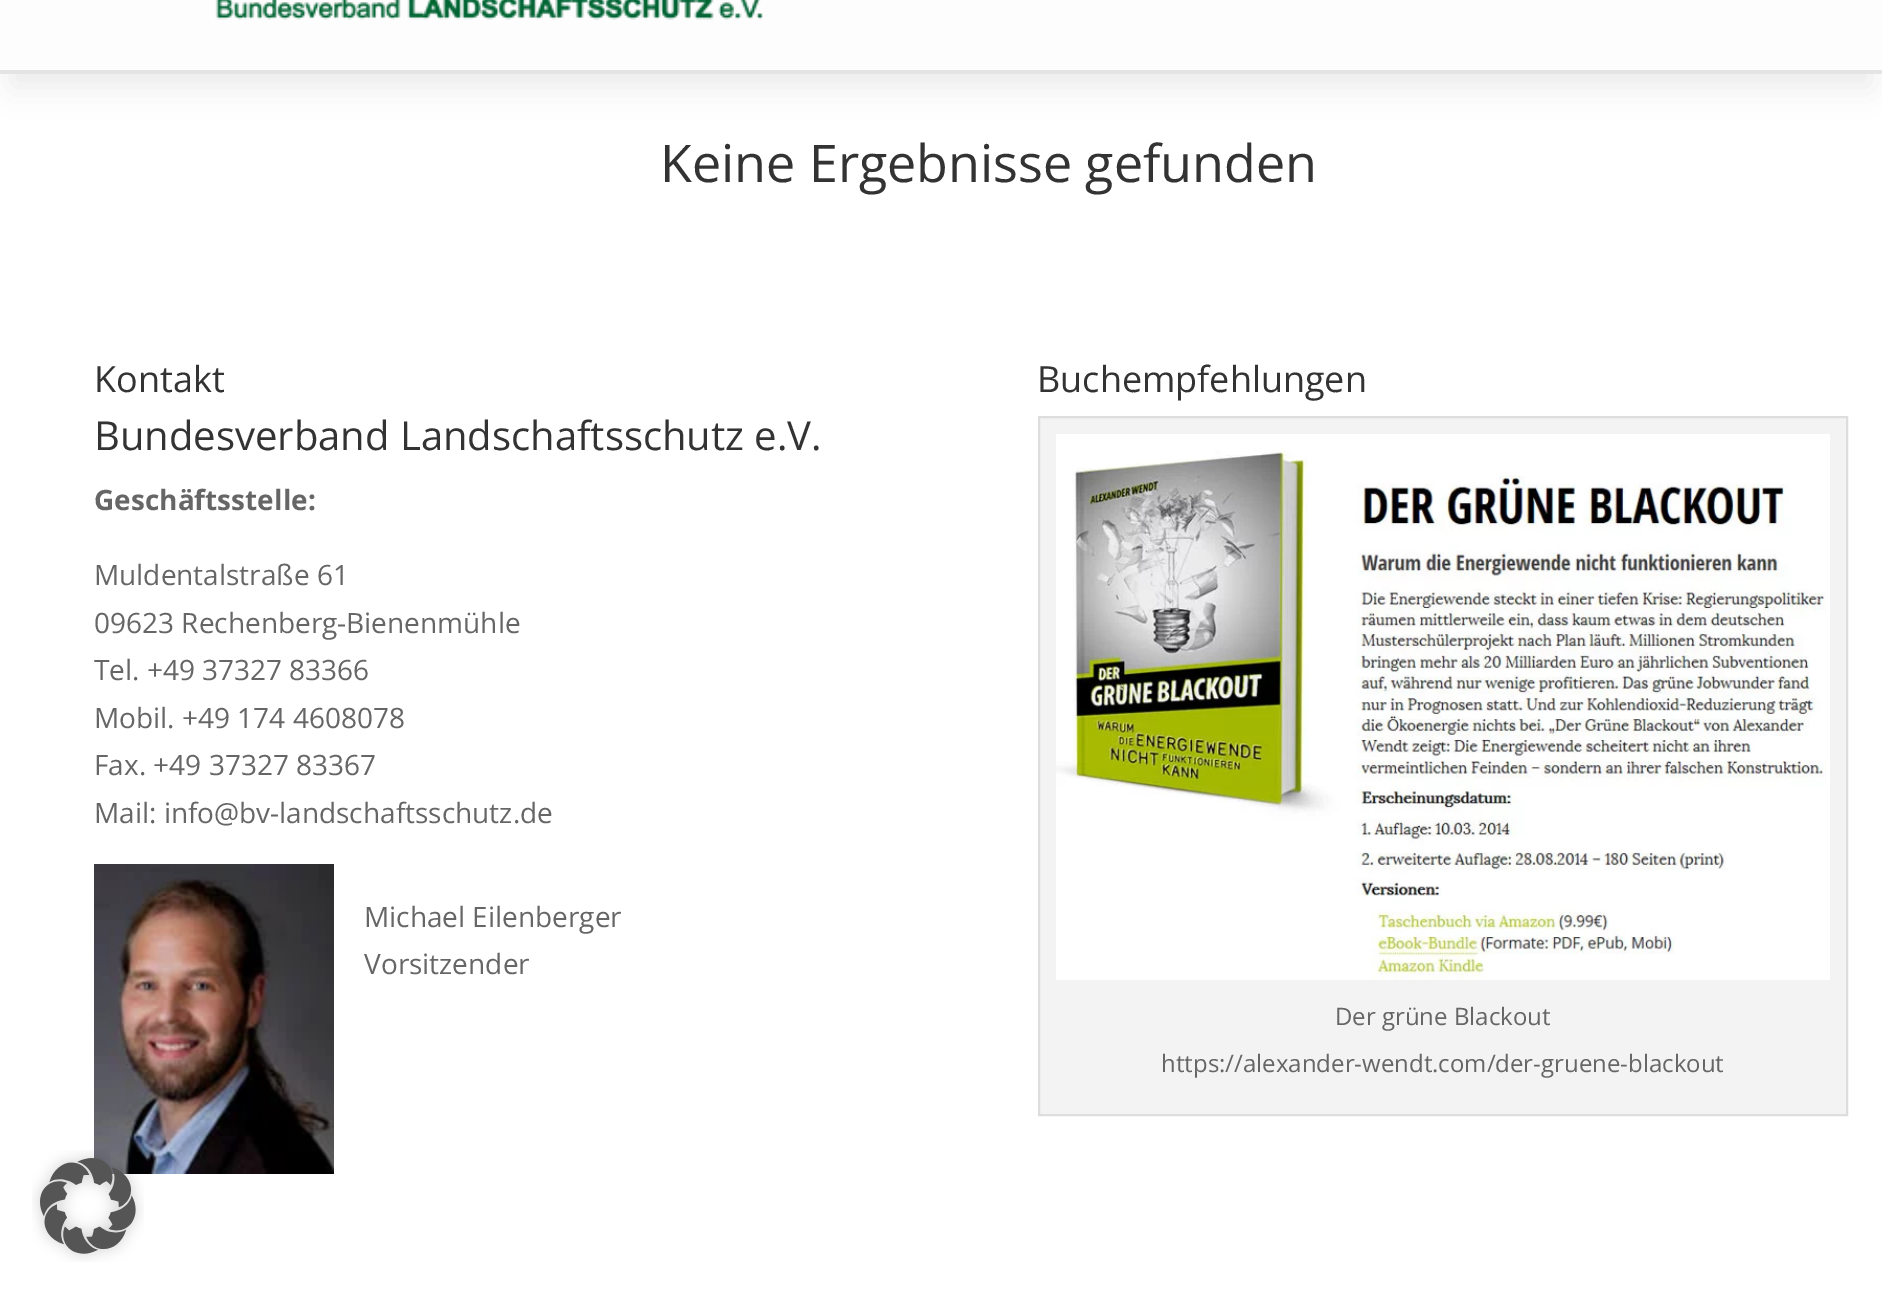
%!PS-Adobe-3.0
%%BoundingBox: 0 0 1882 1294
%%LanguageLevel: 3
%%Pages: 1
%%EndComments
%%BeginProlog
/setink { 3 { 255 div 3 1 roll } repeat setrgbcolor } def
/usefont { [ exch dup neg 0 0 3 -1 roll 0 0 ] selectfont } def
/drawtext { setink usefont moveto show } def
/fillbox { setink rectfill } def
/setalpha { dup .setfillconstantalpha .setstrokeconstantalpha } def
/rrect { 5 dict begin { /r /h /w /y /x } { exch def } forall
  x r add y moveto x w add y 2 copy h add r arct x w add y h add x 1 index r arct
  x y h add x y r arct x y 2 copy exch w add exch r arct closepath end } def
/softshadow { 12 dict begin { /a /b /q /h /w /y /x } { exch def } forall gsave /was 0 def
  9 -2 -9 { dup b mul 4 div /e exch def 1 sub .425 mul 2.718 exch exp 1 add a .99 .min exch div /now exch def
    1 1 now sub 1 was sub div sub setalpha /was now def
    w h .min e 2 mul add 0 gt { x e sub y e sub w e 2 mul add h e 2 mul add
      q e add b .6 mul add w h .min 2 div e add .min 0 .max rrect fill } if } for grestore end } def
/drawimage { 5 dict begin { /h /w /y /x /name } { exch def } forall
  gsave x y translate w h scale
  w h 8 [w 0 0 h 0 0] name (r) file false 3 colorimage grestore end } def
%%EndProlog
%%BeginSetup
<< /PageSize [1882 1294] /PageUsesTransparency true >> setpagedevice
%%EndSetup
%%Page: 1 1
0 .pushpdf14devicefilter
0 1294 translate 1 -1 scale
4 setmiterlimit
0 0 1882 1294 255 255 255 fillbox
0 0 0 setink
12 -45 1858 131 0 15 0.08 softshadow
0 0 1882 70 253 253 254 fillbox
0 70 1882 4 228 228 229 fillbox
(assets/img1.rgb) 215 0 548 20 drawimage
(Keine Ergebnisse gefunden) 660 182 /OpenSans-Regular 52 51 51 51 drawtext
(Kontakt) 94 392 /OpenSans-Regular 36 51 51 51 drawtext
(Bundesverband Landschaftsschutz e.V.) 94 450 /OpenSans-Regular 40 51 51 51 drawtext
(Geschäftsstelle:) 94 510 /OpenSans-Bold 28 102 102 102 drawtext
(Muldentalstraße 61) 94 585 /OpenSans-Regular 28 102 102 102 drawtext
(09623 Rechenberg-Bienenmühle) 94 633 /OpenSans-Regular 28 102 102 102 drawtext
(Tel. +49 37327 83366) 94 680 /OpenSans-Regular 28 102 102 102 drawtext
(Mobil. +49 174 4608078) 94 728 /OpenSans-Regular 28 102 102 102 drawtext
(Fax. +49 37327 83367) 94 775 /OpenSans-Regular 28 102 102 102 drawtext
(Mail: info@bv-landschaftsschutz.de) 94 823 /OpenSans-Regular 28 102 102 102 drawtext
(assets/img2.rgb) 94 864 240 310 drawimage
(Michael Eilenberger) 364 927 /OpenSans-Regular 28 102 102 102 drawtext
(Vorsitzender) 364 974 /OpenSans-Regular 28 102 102 102 drawtext
(Buchempfehlungen) 1037 392 /OpenSans-Regular 36 51 51 51 drawtext
243 243 243 setink
1039 417 moveto 1847 417 lineto 1847 1115 lineto 1039 1115 lineto closepath gsave fill grestore
221 221 221 setink
2 setlinewidth
stroke
(assets/img3.rgb) 1056 434 774 546 drawimage
(Der grüne Blackout) 1335 1025 /OpenSans-Regular 24 102 102 102 drawtext
(https://alexander-wendt.com/der-gruene-blackout) 1161 1072 /OpenSans-Regular 24 102 102 102 drawtext
(assets/img4.rgb) 32 1150 112 112 drawimage
.poppdf14devicefilter showpage
%%EOF
